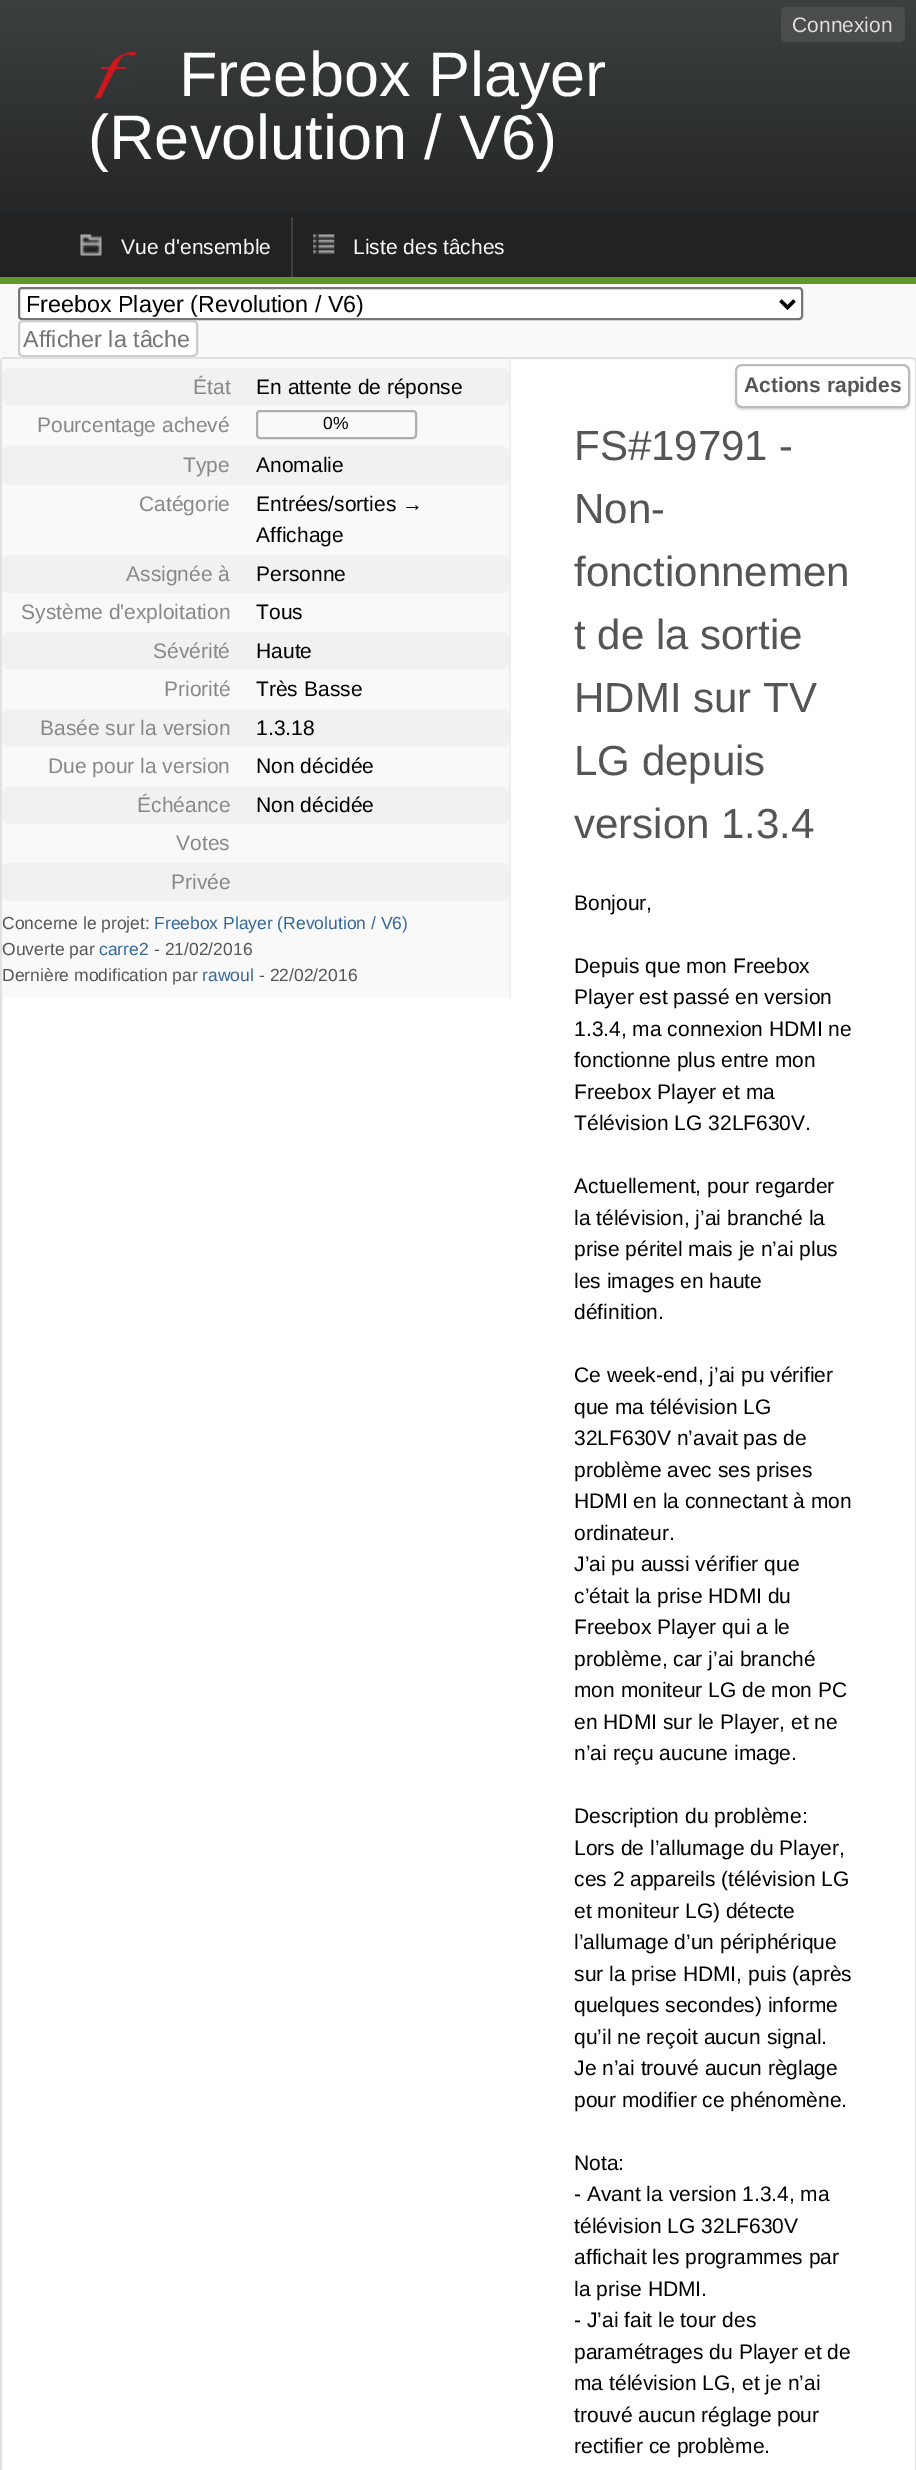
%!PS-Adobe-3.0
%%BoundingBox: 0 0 916 2470
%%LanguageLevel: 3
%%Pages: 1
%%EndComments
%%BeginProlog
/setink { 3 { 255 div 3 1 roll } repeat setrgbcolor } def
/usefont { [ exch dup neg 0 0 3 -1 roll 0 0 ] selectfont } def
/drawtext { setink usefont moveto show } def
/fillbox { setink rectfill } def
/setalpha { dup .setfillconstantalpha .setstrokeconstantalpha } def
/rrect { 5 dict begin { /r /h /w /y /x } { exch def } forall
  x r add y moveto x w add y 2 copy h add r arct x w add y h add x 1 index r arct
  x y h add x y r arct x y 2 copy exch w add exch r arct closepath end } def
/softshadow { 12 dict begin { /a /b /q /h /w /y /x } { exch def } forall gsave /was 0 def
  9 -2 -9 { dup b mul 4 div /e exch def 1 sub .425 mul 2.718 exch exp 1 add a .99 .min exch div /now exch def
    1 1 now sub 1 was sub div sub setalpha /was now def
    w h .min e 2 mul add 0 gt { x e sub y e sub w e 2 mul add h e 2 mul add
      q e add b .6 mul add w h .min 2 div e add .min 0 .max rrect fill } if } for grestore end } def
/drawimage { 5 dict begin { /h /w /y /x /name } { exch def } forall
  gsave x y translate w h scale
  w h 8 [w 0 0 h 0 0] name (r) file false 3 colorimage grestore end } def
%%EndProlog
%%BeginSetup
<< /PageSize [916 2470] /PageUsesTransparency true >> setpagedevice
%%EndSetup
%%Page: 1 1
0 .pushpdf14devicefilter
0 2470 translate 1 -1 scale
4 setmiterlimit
0 0 916 2470 249 249 249 fillbox
gsave 0 0 moveto 916 0 lineto 916 214 lineto 0 214 lineto closepath clip newpath
<< /ShadingType 2 /ColorSpace /DeviceRGB /Coords [459 0 459 214] /Extend [true true] /Function << /FunctionType 2 /Domain [0 1] /C0 [0.235 0.251 0.255] /C1 [0.141 0.149 0.153] /N 1 >> >> shfill grestore
73 77 78 setink
781 7 124 35 5 rrect fill
(Connexion) 792 32 /LiberationSans-Regular 21 221 221 221 drawtext
(assets/img1.rgb) 94 51 43 48 drawimage
(Freebox Player) 179 96 /LiberationSans-Regular 63 255 255 255 drawtext
(\(Revolution / V6\)) 88 159 /LiberationSans-Regular 63 255 255 255 drawtext
0 214 916 63 34 34 34 fillbox
0 277 916 7 95 151 41 fillbox
(assets/img2.rgb) 80 234 22 22 drawimage
(Vue d'ensemble) 121 254 /LiberationSans-Regular 21 249 249 249 drawtext
(assets/img3.rgb) 313 234 22 20 drawimage
291 217 2 60 60 64 65 fillbox
(Liste des tâches) 353 254 /LiberationSans-Regular 21 249 249 249 drawtext
255 255 255 setink
19 288 783 31 3 rrect gsave fill grestore
118 118 118 setink
2 setlinewidth
stroke
0 0 0 setink
3.5 setlinewidth
780.5 300.5 moveto 787.5 307.5 lineto 794.5 300.5 lineto stroke
(Freebox Player \(Revolution / V6\)) 26 312 /LiberationSans-Regular 23.3 0 0 0 drawtext
255 255 255 setink
19 321 178 35 4 rrect gsave fill grestore
204 204 204 setink
2 setlinewidth
stroke
(Afficher la tâche) 23 347 /LiberationSans-Regular 23.3 117 117 117 drawtext
255 255 255 setink
1 358 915 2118 4 rrect gsave fill grestore
225 225 225 setink
stroke
2 359 507 639 249 249 249 fillbox
509 359 2 639 238 238 238 fillbox
241 241 241 setink
2 368 507 38 7 rrect fill
(État) 193 394 /LiberationSans-Regular 21 136 136 136 drawtext
(En attente de réponse) 256 394 /LiberationSans-Regular 21 0 0 0 drawtext
(Pourcentage achevé) 37 432 /LiberationSans-Regular 21 136 136 136 drawtext
174 174 174 setink
257 411 159 27 3 rrect stroke
(0%) 323 429 /LiberationSans-Regular 17.5 0 0 0 drawtext
241 241 241 setink
2 446 507 39 7 rrect fill
(Type) 183 472 /LiberationSans-Regular 21 136 136 136 drawtext
(Anomalie) 256 472 /LiberationSans-Regular 21 0 0 0 drawtext
(Catégorie) 139 511 /LiberationSans-Regular 21 136 136 136 drawtext
(Entrées/sorties →) 256 511 /LiberationSans-Regular 21 0 0 0 drawtext
(Affichage) 256 542 /LiberationSans-Regular 21 0 0 0 drawtext
241 241 241 setink
2 555 507 38 7 rrect fill
(Assignée à) 126 581 /LiberationSans-Regular 21 136 136 136 drawtext
(Personne) 256 581 /LiberationSans-Regular 21 0 0 0 drawtext
(Système d'exploitation) 21 619 /LiberationSans-Regular 21 136 136 136 drawtext
(Tous) 256 619 /LiberationSans-Regular 21 0 0 0 drawtext
241 241 241 setink
2 632 507 38 7 rrect fill
(Sévérité) 153 658 /LiberationSans-Regular 21 136 136 136 drawtext
(Haute) 256 658 /LiberationSans-Regular 21 0 0 0 drawtext
(Priorité) 164 696 /LiberationSans-Regular 21 136 136 136 drawtext
(Très Basse) 256 696 /LiberationSans-Regular 21 0 0 0 drawtext
241 241 241 setink
2 709 507 38 7 rrect fill
(Basée sur la version) 40 735 /LiberationSans-Regular 21 136 136 136 drawtext
(1.3.18) 256 735 /LiberationSans-Regular 21 0 0 0 drawtext
(Due pour la version) 48 773 /LiberationSans-Regular 21 136 136 136 drawtext
(Non décidée) 256 773 /LiberationSans-Regular 21 0 0 0 drawtext
241 241 241 setink
2 786 507 38 7 rrect fill
(Échéance) 137 812 /LiberationSans-Regular 21 136 136 136 drawtext
(Non décidée) 256 812 /LiberationSans-Regular 21 0 0 0 drawtext
(Votes) 176 850 /LiberationSans-Regular 21 136 136 136 drawtext
241 241 241 setink
2 863 507 38 7 rrect fill
(Privée) 171 889 /LiberationSans-Regular 21 136 136 136 drawtext
(Concerne le projet:) 2 929 /LiberationSans-Regular 17.5 85 85 85 drawtext
(Freebox Player \(Revolution / V6\)) 154 929 /LiberationSans-Regular 17.5 51 102 153 drawtext
(Ouverte par) 2 955 /LiberationSans-Regular 17.5 85 85 85 drawtext
(carre2) 99 955 /LiberationSans-Regular 17.5 51 102 153 drawtext
(- 21/02/2016) 154 955 /LiberationSans-Regular 17.5 85 85 85 drawtext
(Dernière modification par) 2 981 /LiberationSans-Regular 17.5 85 85 85 drawtext
(rawoul) 202 981 /LiberationSans-Regular 17.5 51 102 153 drawtext
(- 22/02/2016) 259 981 /LiberationSans-Regular 17.5 85 85 85 drawtext
(FS#19791 -) 574 460 /LiberationSans-Regular 42 85 85 85 drawtext
(Non-) 574 523 /LiberationSans-Regular 42 85 85 85 drawtext
(fonctionnemen) 574 586 /LiberationSans-Regular 42 85 85 85 drawtext
(t de la sortie) 574 649 /LiberationSans-Regular 42 85 85 85 drawtext
(HDMI sur TV) 574 712 /LiberationSans-Regular 42 85 85 85 drawtext
(LG depuis) 574 775 /LiberationSans-Regular 42 85 85 85 drawtext
(version 1.3.4) 574 838 /LiberationSans-Regular 42 85 85 85 drawtext
(Bonjour,) 574 910 /LiberationSans-Regular 21 0 0 0 drawtext
(Depuis que mon Freebox) 574 973 /LiberationSans-Regular 21 0 0 0 drawtext
(Player est passé en version) 574 1004 /LiberationSans-Regular 21 0 0 0 drawtext
(1.3.4, ma connexion HDMI ne) 574 1036 /LiberationSans-Regular 21 0 0 0 drawtext
(fonctionne plus entre mon) 574 1067 /LiberationSans-Regular 21 0 0 0 drawtext
(Freebox Player et ma) 574 1099 /LiberationSans-Regular 21 0 0 0 drawtext
(Télévision LG 32LF630V.) 574 1130 /LiberationSans-Regular 21 0 0 0 drawtext
(Actuellement, pour regarder) 574 1193 /LiberationSans-Regular 21 0 0 0 drawtext
(la télévision, j’ai branché la) 574 1225 /LiberationSans-Regular 21 0 0 0 drawtext
(prise péritel mais je n’ai plus) 574 1256 /LiberationSans-Regular 21 0 0 0 drawtext
(les images en haute) 574 1288 /LiberationSans-Regular 21 0 0 0 drawtext
(définition.) 574 1319 /LiberationSans-Regular 21 0 0 0 drawtext
(Ce week-end, j’ai pu vérifier) 574 1382 /LiberationSans-Regular 21 0 0 0 drawtext
(que ma télévision LG) 574 1414 /LiberationSans-Regular 21 0 0 0 drawtext
(32LF630V n’avait pas de) 574 1445 /LiberationSans-Regular 21 0 0 0 drawtext
(problème avec ses prises) 574 1477 /LiberationSans-Regular 21 0 0 0 drawtext
(HDMI en la connectant à mon) 574 1508 /LiberationSans-Regular 21 0 0 0 drawtext
(ordinateur.) 574 1540 /LiberationSans-Regular 21 0 0 0 drawtext
(J’ai pu aussi vérifier que) 574 1571 /LiberationSans-Regular 21 0 0 0 drawtext
(c’était la prise HDMI du) 574 1603 /LiberationSans-Regular 21 0 0 0 drawtext
(Freebox Player qui a le) 574 1634 /LiberationSans-Regular 21 0 0 0 drawtext
(problème, car j’ai branché) 574 1666 /LiberationSans-Regular 21 0 0 0 drawtext
(mon moniteur LG de mon PC) 574 1697 /LiberationSans-Regular 21 0 0 0 drawtext
(en HDMI sur le Player, et ne) 574 1729 /LiberationSans-Regular 21 0 0 0 drawtext
(n’ai reçu aucune image.) 574 1760 /LiberationSans-Regular 21 0 0 0 drawtext
(Description du problème:) 574 1823 /LiberationSans-Regular 21 0 0 0 drawtext
(Lors de l’allumage du Player,) 574 1855 /LiberationSans-Regular 21 0 0 0 drawtext
(ces 2 appareils \(télévision LG) 574 1886 /LiberationSans-Regular 21 0 0 0 drawtext
(et moniteur LG\) détecte) 574 1918 /LiberationSans-Regular 21 0 0 0 drawtext
(l’allumage d’un périphérique) 574 1949 /LiberationSans-Regular 21 0 0 0 drawtext
(sur la prise HDMI, puis \(après) 574 1981 /LiberationSans-Regular 21 0 0 0 drawtext
(quelques secondes\) informe) 574 2012 /LiberationSans-Regular 21 0 0 0 drawtext
(qu’il ne reçoit aucun signal.) 574 2044 /LiberationSans-Regular 21 0 0 0 drawtext
(Je n’ai trouvé aucun règlage) 574 2075 /LiberationSans-Regular 21 0 0 0 drawtext
(pour modifier ce phénomène.) 574 2107 /LiberationSans-Regular 21 0 0 0 drawtext
(Nota:) 574 2170 /LiberationSans-Regular 21 0 0 0 drawtext
(- Avant la version 1.3.4, ma) 574 2201 /LiberationSans-Regular 21 0 0 0 drawtext
(télévision LG 32LF630V) 574 2233 /LiberationSans-Regular 21 0 0 0 drawtext
(affichait les programmes par) 574 2264 /LiberationSans-Regular 21 0 0 0 drawtext
(la prise HDMI.) 574 2296 /LiberationSans-Regular 21 0 0 0 drawtext
(- J’ai fait le tour des) 574 2327 /LiberationSans-Regular 21 0 0 0 drawtext
(paramétrages du Player et de) 574 2359 /LiberationSans-Regular 21 0 0 0 drawtext
(ma télévision LG, et je n’ai) 574 2390 /LiberationSans-Regular 21 0 0 0 drawtext
(trouvé aucun réglage pour) 574 2422 /LiberationSans-Regular 21 0 0 0 drawtext
(rectifier ce problème.) 574 2453 /LiberationSans-Regular 21 0 0 0 drawtext
221 221 221 setink
735 366 175 44 7 1 1 softshadow
255 255 255 setink
736 365 173 42 6 rrect gsave fill grestore
187 187 187 setink
stroke
(Actions rapides) 744 392 /LiberationSans-Bold 21 85 85 85 drawtext
.poppdf14devicefilter showpage
%%EOF
